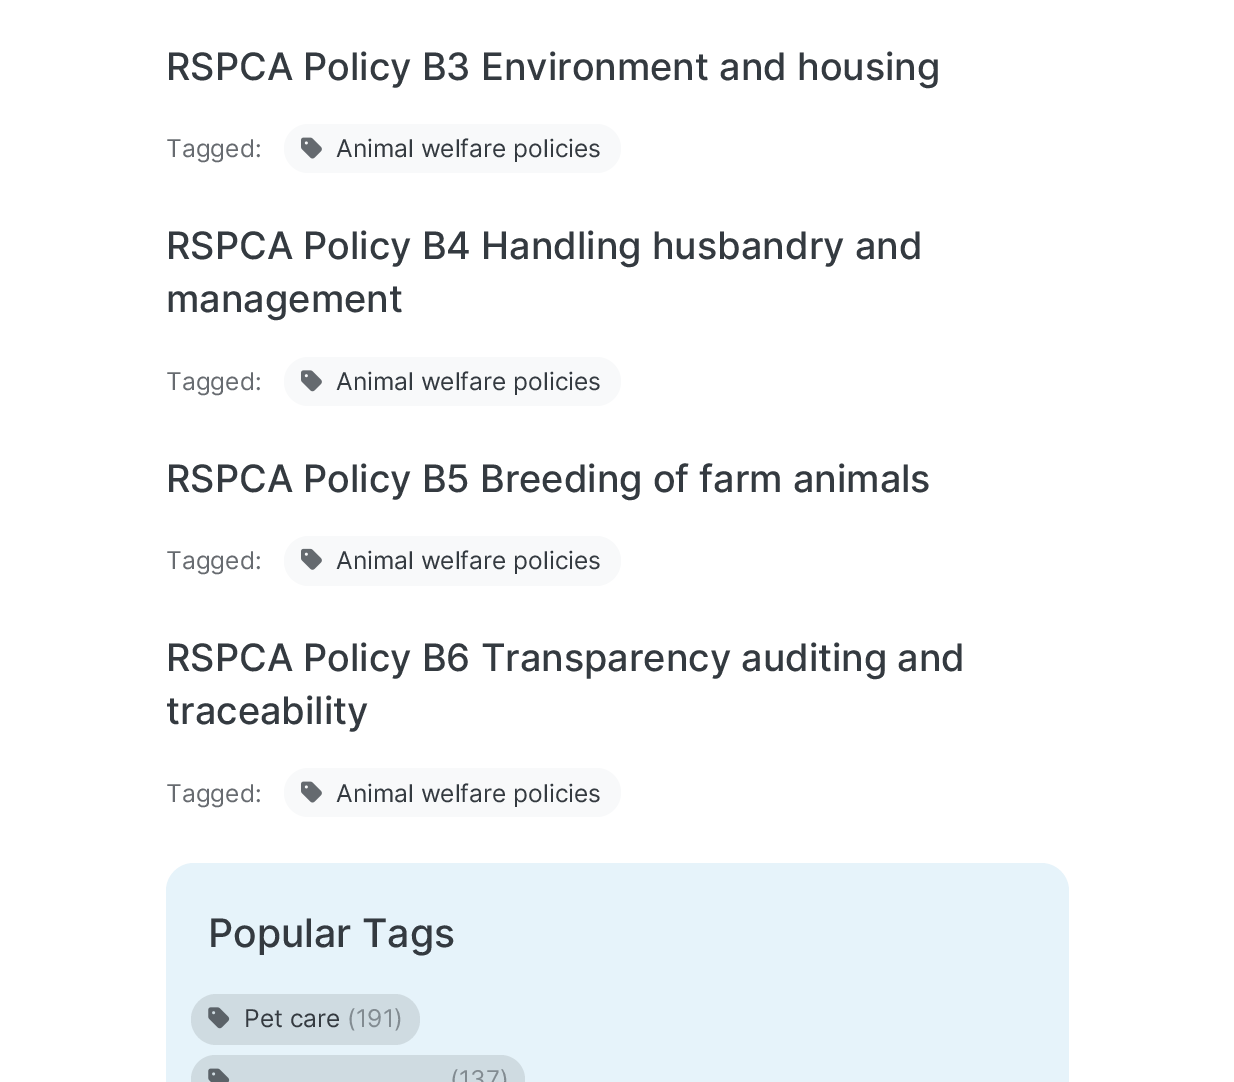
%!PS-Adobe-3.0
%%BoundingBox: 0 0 1234 1082
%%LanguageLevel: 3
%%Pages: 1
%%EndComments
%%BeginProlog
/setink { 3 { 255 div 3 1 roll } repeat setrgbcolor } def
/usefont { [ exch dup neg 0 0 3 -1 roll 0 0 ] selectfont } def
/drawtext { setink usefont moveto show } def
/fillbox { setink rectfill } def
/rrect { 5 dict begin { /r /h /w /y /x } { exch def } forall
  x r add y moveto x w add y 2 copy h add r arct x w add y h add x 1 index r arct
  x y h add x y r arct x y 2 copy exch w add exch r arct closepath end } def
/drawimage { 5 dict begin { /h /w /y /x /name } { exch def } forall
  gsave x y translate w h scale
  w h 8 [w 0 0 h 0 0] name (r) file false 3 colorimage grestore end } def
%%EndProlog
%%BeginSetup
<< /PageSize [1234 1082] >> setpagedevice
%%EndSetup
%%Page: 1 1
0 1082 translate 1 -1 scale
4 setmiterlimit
0 0 1234 1082 255 255 255 fillbox
(RSPCA Policy B3 Environment and housing) 166 80 /Inter-Medium 37.8 52 58 64 drawtext
(Tagged:) 166 157 /Inter-Regular 24.5 103 107 112 drawtext
248 249 250 setink
284 124 337 49 24.5 rrect fill
(assets/img1.rgb) 301 137 21 22 drawimage
(Animal welfare policies) 336 157 /Inter-Regular 24.5 52 58 64 drawtext
(RSPCA Policy B4 Handling husbandry and) 166 259 /Inter-Medium 37.8 52 58 64 drawtext
(management) 166 312 /Inter-Medium 37.8 52 58 64 drawtext
(Tagged:) 166 390 /Inter-Regular 24.5 103 107 112 drawtext
248 249 250 setink
284 357 337 49 24.5 rrect fill
(assets/img2.rgb) 301 370 21 22 drawimage
(Animal welfare policies) 336 390 /Inter-Regular 24.5 52 58 64 drawtext
(RSPCA Policy B5 Breeding of farm animals) 166 492 /Inter-Medium 37.8 52 58 64 drawtext
(Tagged:) 166 569 /Inter-Regular 24.5 103 107 112 drawtext
248 249 250 setink
284 536 337 50 25 rrect fill
(assets/img3.rgb) 301 548 21 22 drawimage
(Animal welfare policies) 336 569 /Inter-Regular 24.5 52 58 64 drawtext
(RSPCA Policy B6 Transparency auditing and) 166 671 /Inter-Medium 37.8 52 58 64 drawtext
(traceability) 166 724 /Inter-Medium 37.8 52 58 64 drawtext
(Tagged:) 166 802 /Inter-Regular 24.5 103 107 112 drawtext
248 249 250 setink
284 768 337 49 24.5 rrect fill
(assets/img1.rgb) 301 781 21 22 drawimage
(Animal welfare policies) 336 802 /Inter-Regular 24.5 52 58 64 drawtext
230 243 250 setink
166 863 903 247 28 rrect fill
(Popular Tags) 208 947 /Inter-Medium 39.25 52 58 64 drawtext
207 219 225 setink
191 994 229 51 25.5 rrect fill
(assets/img4.rgb) 208 1007 22 22 drawimage
(Pet care) 244 1027 /Inter-Regular 24.5 52 58 64 drawtext
(\(191\)) 347 1027 /Inter-Regular 24.5 130 139 145 drawtext
207 219 225 setink
191 1055 334 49 24.5 rrect fill
(assets/img5.rgb) 208 1068 22 14 drawimage
(\(137\)) 450 1088 /Inter-Regular 24.5 130 139 145 drawtext
showpage
%%EOF
